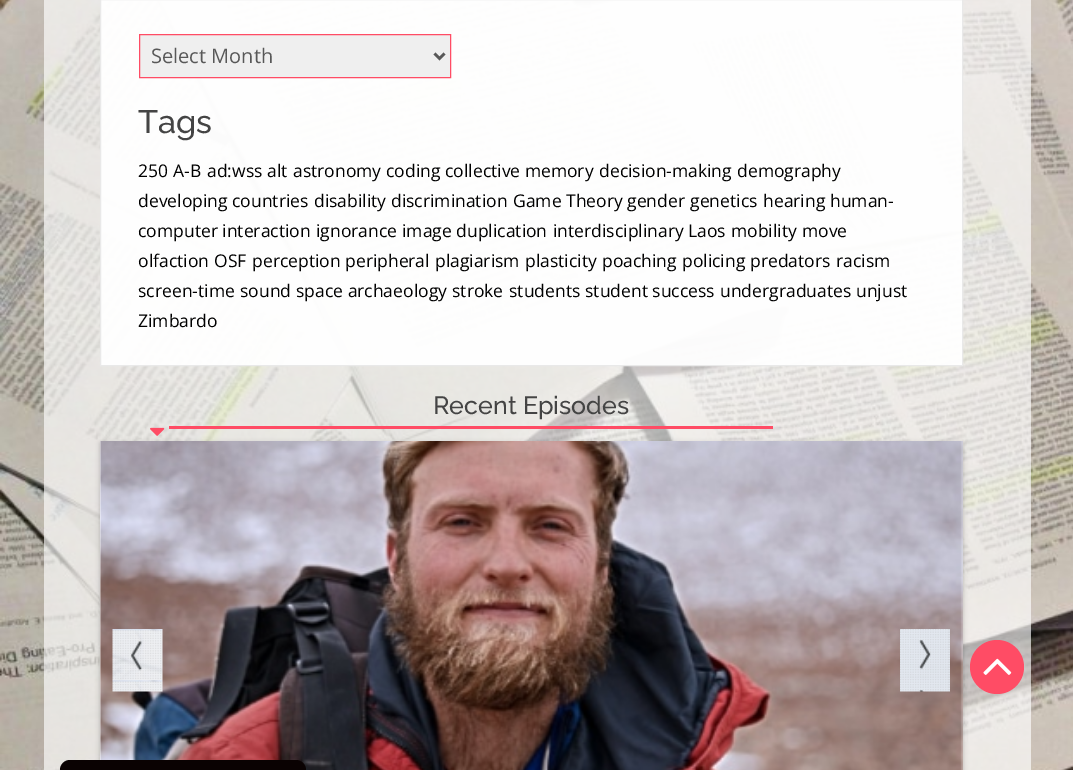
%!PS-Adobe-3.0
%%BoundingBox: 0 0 1073 770
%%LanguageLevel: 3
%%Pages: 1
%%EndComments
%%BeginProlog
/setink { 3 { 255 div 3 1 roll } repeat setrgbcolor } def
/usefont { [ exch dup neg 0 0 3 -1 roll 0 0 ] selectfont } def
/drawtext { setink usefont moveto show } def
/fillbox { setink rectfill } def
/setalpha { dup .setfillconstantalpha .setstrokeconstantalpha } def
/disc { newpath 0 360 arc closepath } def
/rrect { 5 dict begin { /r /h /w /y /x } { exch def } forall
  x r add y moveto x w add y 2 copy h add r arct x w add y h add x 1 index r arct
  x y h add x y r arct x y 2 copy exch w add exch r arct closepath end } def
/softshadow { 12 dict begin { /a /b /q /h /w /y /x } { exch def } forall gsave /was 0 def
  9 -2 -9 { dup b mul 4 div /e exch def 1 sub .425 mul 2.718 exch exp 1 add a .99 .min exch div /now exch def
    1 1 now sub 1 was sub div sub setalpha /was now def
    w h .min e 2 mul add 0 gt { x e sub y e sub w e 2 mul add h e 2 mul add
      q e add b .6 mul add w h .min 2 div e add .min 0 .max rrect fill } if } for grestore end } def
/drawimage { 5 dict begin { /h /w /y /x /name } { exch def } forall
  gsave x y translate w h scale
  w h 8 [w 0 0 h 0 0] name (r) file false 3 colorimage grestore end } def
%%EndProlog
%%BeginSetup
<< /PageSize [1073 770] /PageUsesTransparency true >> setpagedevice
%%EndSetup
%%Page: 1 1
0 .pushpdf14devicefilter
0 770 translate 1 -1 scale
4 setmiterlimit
0 0 1073 770 255 255 255 fillbox
(assets/img1.rgb) 0 0 1073 770 drawimage
0.95 setalpha
100.5 -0.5 moveto 962.5 -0.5 lineto 962.5 365.5 lineto 100.5 365.5 lineto closepath fill
1 setalpha
233 233 233 setink
100.5 -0.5 moveto 962.5 -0.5 lineto 962.5 365.5 lineto 100.5 365.5 lineto closepath stroke
239 239 239 setink
139.5 34.5 moveto 450.5 34.5 lineto 450.5 77.5 lineto 139.5 77.5 lineto closepath gsave fill grestore
255 76 101 setink
stroke
88 88 88 setink
2.5 setlinewidth
434.5 53.5 moveto 439.5 58.5 lineto 444.5 53.5 lineto stroke
(Select Month) 151 63 /OpenSans-Regular 20 88 88 88 drawtext
(Tags) 138 133 /Raleway-Medium 32.5 68 68 68 drawtext
(250) 138 177 /OpenSans-Regular 17.5 0 0 0 drawtext
(A-B) 173 177 /OpenSans-Regular 17.5 0 0 0 drawtext
(ad:wss) 207 177 /OpenSans-Regular 17.5 0 0 0 drawtext
(alt) 267 177 /OpenSans-Regular 17.5 0 0 0 drawtext
(astronomy) 293 177 /OpenSans-Regular 17.5 0 0 0 drawtext
(coding) 386 177 /OpenSans-Regular 17.5 0 0 0 drawtext
(collective memory) 445 177 /OpenSans-Regular 17.5 0 0 0 drawtext
(decision-making) 599 177 /OpenSans-Regular 17.5 0 0 0 drawtext
(demography) 737 177 /OpenSans-Regular 17.5 0 0 0 drawtext
(developing countries) 138 207 /OpenSans-Regular 17.5 0 0 0 drawtext
(disability) 314 207 /OpenSans-Regular 17.5 0 0 0 drawtext
(discrimination) 391 207 /OpenSans-Regular 17.5 0 0 0 drawtext
(Game Theory) 513 207 /OpenSans-Regular 17.5 0 0 0 drawtext
(gender) 627 207 /OpenSans-Regular 17.5 0 0 0 drawtext
(genetics) 690 207 /OpenSans-Regular 17.5 0 0 0 drawtext
(hearing) 763 207 /OpenSans-Regular 17.5 0 0 0 drawtext
(human-) 830 207 /OpenSans-Regular 17.5 0 0 0 drawtext
(computer interaction) 138 237 /OpenSans-Regular 17.5 0 0 0 drawtext
(ignorance) 316 237 /OpenSans-Regular 17.5 0 0 0 drawtext
(image duplication) 402 237 /OpenSans-Regular 17.5 0 0 0 drawtext
(interdisciplinary) 553 237 /OpenSans-Regular 17.5 0 0 0 drawtext
(Laos) 688 237 /OpenSans-Regular 17.5 0 0 0 drawtext
(mobility) 731 237 /OpenSans-Regular 17.5 0 0 0 drawtext
(move) 802 237 /OpenSans-Regular 17.5 0 0 0 drawtext
(olfaction) 138 267 /OpenSans-Regular 17.5 0 0 0 drawtext
(OSF) 214 267 /OpenSans-Regular 17.5 0 0 0 drawtext
(perception) 252 267 /OpenSans-Regular 17.5 0 0 0 drawtext
(peripheral) 345 267 /OpenSans-Regular 17.5 0 0 0 drawtext
(plagiarism) 435 267 /OpenSans-Regular 17.5 0 0 0 drawtext
(plasticity) 525 267 /OpenSans-Regular 17.5 0 0 0 drawtext
(poaching) 602 267 /OpenSans-Regular 17.5 0 0 0 drawtext
(policing) 682 267 /OpenSans-Regular 17.5 0 0 0 drawtext
(predators) 750 267 /OpenSans-Regular 17.5 0 0 0 drawtext
(racism) 836 267 /OpenSans-Regular 17.5 0 0 0 drawtext
(screen-time) 138 297 /OpenSans-Regular 17.5 0 0 0 drawtext
(sound) 240 297 /OpenSans-Regular 17.5 0 0 0 drawtext
(space archaeology) 296 297 /OpenSans-Regular 17.5 0 0 0 drawtext
(stroke) 452 297 /OpenSans-Regular 17.5 0 0 0 drawtext
(students) 509 297 /OpenSans-Regular 17.5 0 0 0 drawtext
(student success) 585 297 /OpenSans-Regular 17.5 0 0 0 drawtext
(undergraduates) 720 297 /OpenSans-Regular 17.5 0 0 0 drawtext
(unjust) 856 297 /OpenSans-Regular 17.5 0 0 0 drawtext
(Zimbardo) 138 327 /OpenSans-Regular 17.5 0 0 0 drawtext
(Recent Episodes) 433 414 /Raleway-Medium 25 68 68 68 drawtext
(assets/img2.rgb) 150 427 15 9 drawimage
169 426 604 3 255 76 101 fillbox
0 0 0 setink
100 443 863 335 0 2.5 0.2 softshadow
100 441 863 329 255 255 255 fillbox
(assets/img3.rgb) 100 441 863 329 drawimage
(assets/img4.rgb) 112 629 51 63 drawimage
(assets/img5.rgb) 900 629 50 63 drawimage
255 76 101 setink
997 667 27 disc fill
(assets/img6.rgb) 983 658 29 17 drawimage
10 2 2 setink
70 760 moveto 296 760 lineto 301.5 760 306 764.5 306 770 curveto 306 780 lineto 60 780 lineto 60 770 lineto 60 764.5 64.5 760 70 760 curveto closepath fill
.poppdf14devicefilter showpage
%%EOF
